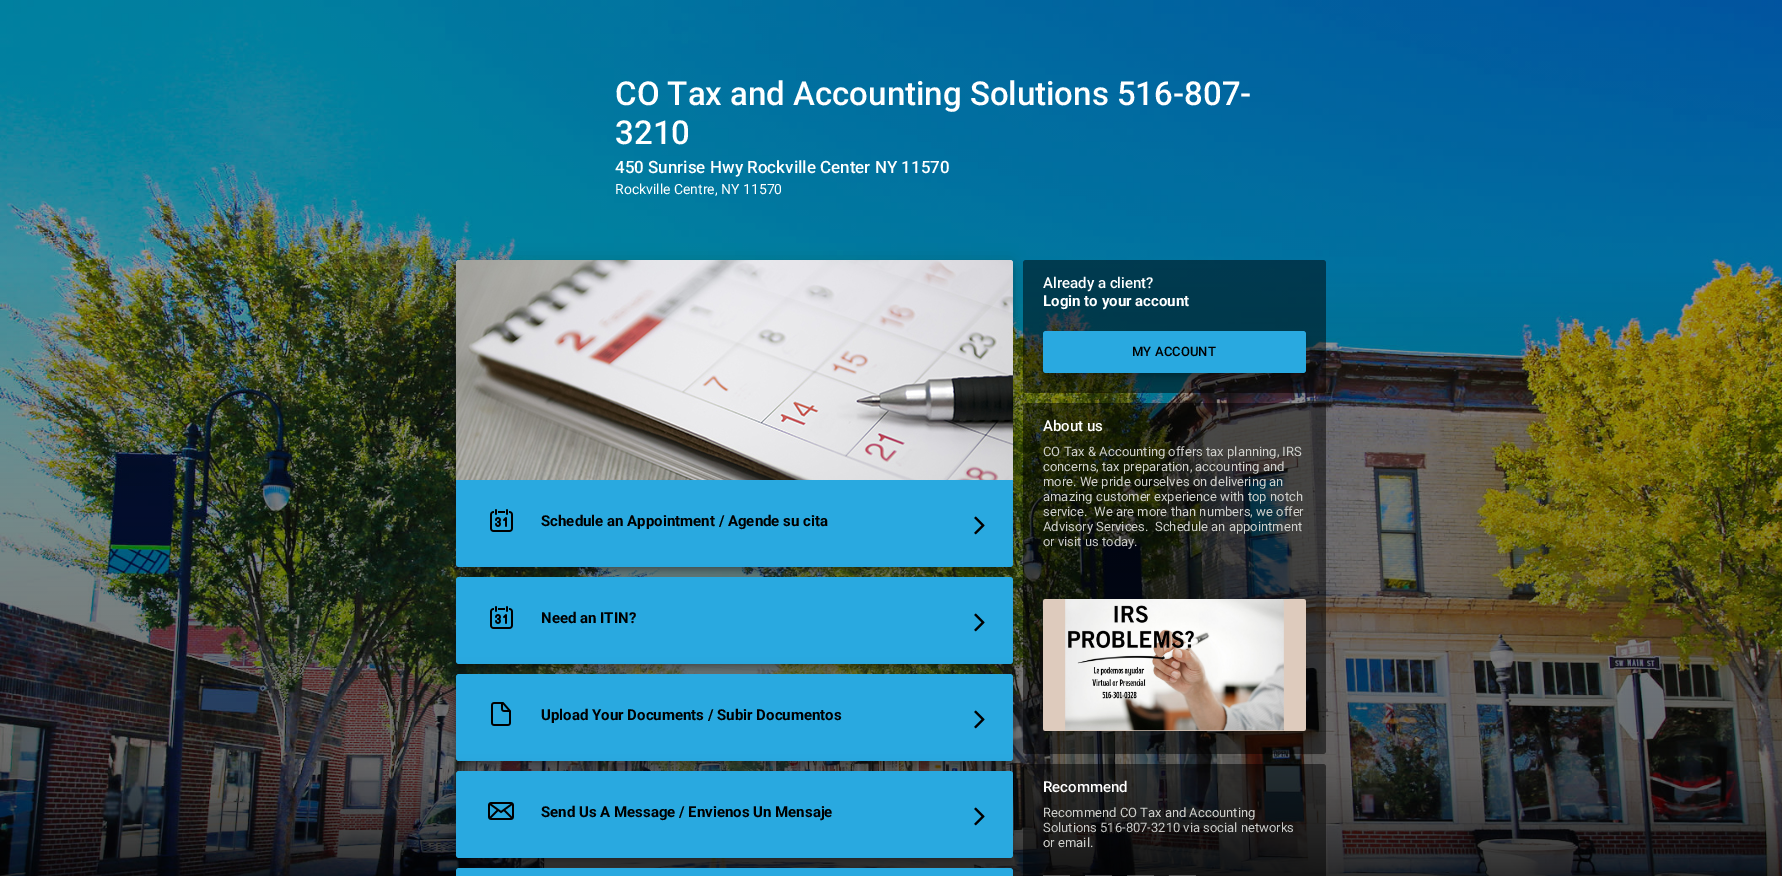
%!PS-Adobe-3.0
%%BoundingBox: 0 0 1782 876
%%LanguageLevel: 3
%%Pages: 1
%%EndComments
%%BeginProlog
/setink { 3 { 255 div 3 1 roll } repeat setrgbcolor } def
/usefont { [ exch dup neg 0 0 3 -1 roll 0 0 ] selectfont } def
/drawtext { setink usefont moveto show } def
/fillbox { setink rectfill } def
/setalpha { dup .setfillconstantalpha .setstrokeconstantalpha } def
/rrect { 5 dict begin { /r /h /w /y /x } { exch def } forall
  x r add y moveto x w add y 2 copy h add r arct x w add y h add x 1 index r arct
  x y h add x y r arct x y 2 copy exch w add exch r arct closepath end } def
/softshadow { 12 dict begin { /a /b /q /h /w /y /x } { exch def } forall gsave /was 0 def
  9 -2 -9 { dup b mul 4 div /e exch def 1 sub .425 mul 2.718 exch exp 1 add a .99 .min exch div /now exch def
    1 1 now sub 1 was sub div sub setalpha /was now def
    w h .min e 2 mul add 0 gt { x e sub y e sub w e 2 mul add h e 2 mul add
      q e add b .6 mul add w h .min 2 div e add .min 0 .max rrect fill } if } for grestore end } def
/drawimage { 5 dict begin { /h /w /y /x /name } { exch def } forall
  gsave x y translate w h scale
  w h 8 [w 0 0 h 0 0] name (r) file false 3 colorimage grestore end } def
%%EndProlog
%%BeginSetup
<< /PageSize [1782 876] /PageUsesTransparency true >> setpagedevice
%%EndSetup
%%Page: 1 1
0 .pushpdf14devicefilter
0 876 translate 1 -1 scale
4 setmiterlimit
0 0 1782 876 255 255 255 fillbox
(assets/img1.rgb) 0 0 1782 876 drawimage
(CO Tax and Accounting Solutions 516-807-) 615 105 /Roboto-Medium 33 255 255 255 drawtext
(3210) 615 144 /Roboto-Medium 33 255 255 255 drawtext
(450 Sunrise Hwy Rockville Center NY 11570) 615 173 /Roboto-Medium 17 255 255 255 drawtext
(Rockville Centre, NY 11570) 615 194 /Roboto-Regular 14 255 255 255 drawtext
0.5 setalpha
0 0 0 setink
1023 260 303 133 3 rrect fill
1023 403 303 351 3 rrect fill
1 setalpha
455 261 559 309 4 8 0.12 softshadow
455 266 559 309 4 5 0.14 softshadow
458 266 553 303 1 2.5 0.2 softshadow
(assets/img2.rgb) 456 260 557 220 drawimage
41 169 224 setink
456 480 moveto 1013 480 lineto 1013 564 lineto 1013 565.5 1011.5 567 1010 567 curveto 459 567 lineto 457.5 567 456 565.5 456 564 curveto closepath fill
(assets/img3.rgb) 490 509 23 23 drawimage
(Schedule an Appointment / Agende su cita) 541 526 /Roboto-Bold 15 0 0 0 drawtext
(assets/img4.rgb) 974 516 11 19 drawimage
455 578 559 89 4 8 0.12 softshadow
455 583 559 89 4 5 0.14 softshadow
458 583 553 83 1 2.5 0.2 softshadow
41 169 224 setink
456 577 557 87 3 rrect fill
(assets/img3.rgb) 490 606 23 23 drawimage
(Need an ITIN?) 541 623 /Roboto-Bold 15 0 0 0 drawtext
(assets/img4.rgb) 974 613 11 19 drawimage
0.5 setalpha
1026 764 moveto 1323 764 lineto 1324.5 764 1326 765.5 1326 767 curveto 1326 876 lineto 1023 876 lineto 1023 767 lineto 1023 765.5 1024.5 764 1026 764 curveto closepath fill
1 setalpha
455 675 559 89 4 8 0.12 softshadow
455 680 559 89 4 5 0.14 softshadow
458 680 553 83 1 2.5 0.2 softshadow
41 169 224 setink
456 674 557 87 3 rrect fill
(assets/img5.rgb) 491 702 20 24 drawimage
(Upload Your Documents / Subir Documentos) 541 720 /Roboto-Bold 15 0 0 0 drawtext
(assets/img4.rgb) 974 710 11 19 drawimage
455 772 559 89 4 8 0.12 softshadow
455 777 559 89 4 5 0.14 softshadow
458 777 553 83 1 2.5 0.2 softshadow
41 169 224 setink
456 771 557 87 3 rrect fill
(assets/img6.rgb) 488 802 26 18 drawimage
(Send Us A Message / Envienos Un Mensaje) 541 817 /Roboto-Bold 15 0 0 0 drawtext
(assets/img4.rgb) 974 807 11 19 drawimage
41 169 224 setink
459 868 moveto 1010 868 lineto 1011.5 868 1013 869.5 1013 871 curveto 1013 876 lineto 456 876 lineto 456 871 lineto 456 869.5 457.5 868 459 868 curveto closepath fill
(Already a client?) 1043 288 /Roboto-Medium 15 255 255 255 drawtext
(Login to your account) 1043 306 /Roboto-Bold 15 255 255 255 drawtext
0 0 0 setink
1042 337 265 44 4 5 0.14 softshadow
1045 337 259 38 1 2.5 0.2 softshadow
41 169 224 setink
1043 331 263 42 3 rrect fill
/Roboto-Medium 13 usefont
0 0 0 setink
1132 356 moveto 0.1 0 (MY ACCOUNT) ashow
(About us) 1043 431 /Roboto-Medium 15 255 255 255 drawtext
(CO Tax & Accounting offers tax planning, IRS) 1043 456 /Roboto-Regular 13 207 208 204 drawtext
(concerns, tax preparation, accounting and) 1043 471 /Roboto-Regular 13 207 208 204 drawtext
(more. We pride ourselves on delivering an) 1043 486 /Roboto-Regular 13 207 208 204 drawtext
(amazing customer experience with top notch) 1043 501 /Roboto-Regular 13 207 208 204 drawtext
(service.  We are more than numbers, we offer) 1043 516 /Roboto-Regular 13 207 208 204 drawtext
(Advisory Services.  Schedule an appointment) 1043 531 /Roboto-Regular 13 207 208 204 drawtext
(or visit us today.) 1043 546 /Roboto-Regular 13 201 202 200 drawtext
(assets/img7.rgb) 1043 599 263 132 drawimage
(Recommend) 1043 792 /Roboto-Medium 15 255 255 255 drawtext
(Recommend CO Tax and Accounting) 1043 817 /Roboto-Regular 13 207 208 204 drawtext
(Solutions) 1043 832 /Roboto-Regular 13 201 202 200 drawtext
(516-807-3210 via social networks) 1100 832 /Roboto-Regular 13 201 202 200 drawtext
(or email.) 1043 847 /Roboto-Regular 13 207 208 204 drawtext
0.25 setalpha
1043 875 27 1 255 255 255 fillbox
1085 875 27 1 255 255 255 fillbox
1127 875 27 1 255 255 255 fillbox
1 setalpha
(assets/img8.rgb) 1168 875 28 1 drawimage
.poppdf14devicefilter showpage
%%EOF
